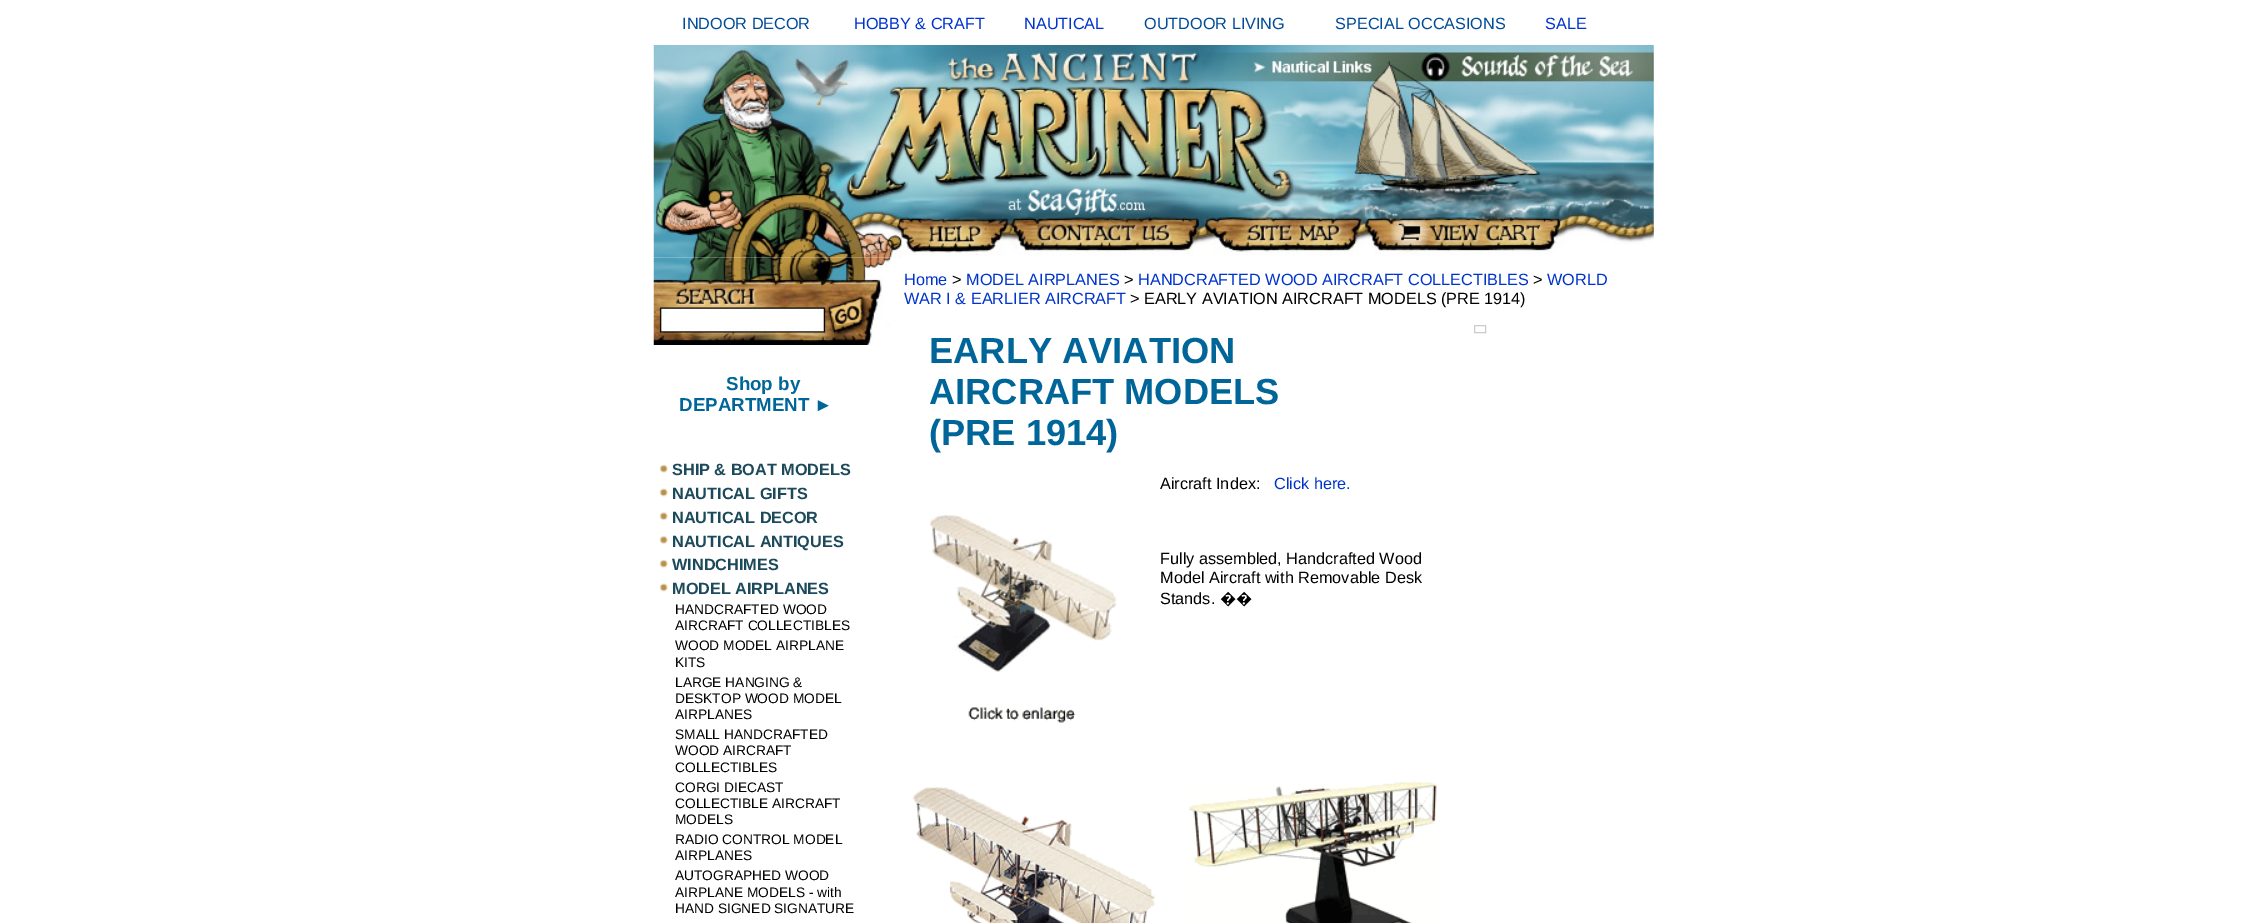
%!PS-Adobe-3.0
%%BoundingBox: 0 0 2257 923
%%LanguageLevel: 3
%%Pages: 1
%%EndComments
%%BeginProlog
/setink { 3 { 255 div 3 1 roll } repeat setrgbcolor } def
/usefont { [ exch dup neg 0 0 3 -1 roll 0 0 ] selectfont } def
/drawtext { setink usefont moveto show } def
/fillbox { setink rectfill } def
/drawimage { 5 dict begin { /h /w /y /x /name } { exch def } forall
  gsave x y translate w h scale
  w h 8 [w 0 0 h 0 0] name (r) file false 3 colorimage grestore end } def
%%EndProlog
%%BeginSetup
<< /PageSize [2257 923] >> setpagedevice
%%EndSetup
%%Page: 1 1
0 923 translate 1 -1 scale
4 setmiterlimit
0 0 2257 923 255 255 255 fillbox
(INDOOR DECOR) 682 29 /LiberationSans-Regular 16.25 0 75 152 drawtext
(HOBBY & CRAFT) 854 29 /LiberationSans-Regular 16.25 0 51 204 drawtext
(NAUTICAL) 1024 29 /LiberationSans-Regular 16.25 0 51 204 drawtext
(OUTDOOR LIVING) 1144 29 /LiberationSans-Regular 16.25 0 75 152 drawtext
(SPECIAL OCCASIONS) 1335 29 /LiberationSans-Regular 16.25 0 75 152 drawtext
(SALE) 1545 29 /LiberationSans-Regular 16.25 0 51 204 drawtext
(assets/img1.rgb) 653 45 1001 213 drawimage
(assets/img2.rgb) 653 257 238 88 drawimage
(Shop by) 726 390 /LiberationSans-Bold 18.75 0 102 153 drawtext
(DEPARTMENT ►) 679 411 /LiberationSans-Bold 18.75 0 102 153 drawtext
(assets/img3.rgb) 659 464 9 9 drawimage
(SHIP & BOAT MODELS) 672 475 /LiberationSans-Bold 16.25 29 74 91 drawtext
(assets/img4.rgb) 659 488 9 9 drawimage
(NAUTICAL GIFTS) 672 499 /LiberationSans-Bold 16.25 29 74 91 drawtext
(assets/img5.rgb) 659 512 9 9 drawimage
(NAUTICAL DECOR) 672 523 /LiberationSans-Bold 16.25 29 74 91 drawtext
(assets/img6.rgb) 659 536 9 8 drawimage
(NAUTICAL ANTIQUES) 672 547 /LiberationSans-Bold 16.25 29 74 91 drawtext
(assets/img3.rgb) 659 559 9 9 drawimage
(WINDCHIMES) 672 570 /LiberationSans-Bold 16.25 29 74 91 drawtext
(assets/img4.rgb) 659 583 9 9 drawimage
(MODEL AIRPLANES) 672 594 /LiberationSans-Bold 16.25 29 74 91 drawtext
(HANDCRAFTED WOOD) 675 614 /LiberationSans-Regular 13.75 0 0 0 drawtext
(AIRCRAFT COLLECTIBLES) 675 630 /LiberationSans-Regular 13.75 0 0 0 drawtext
(WOOD MODEL AIRPLANE) 675 650 /LiberationSans-Regular 13.75 0 0 0 drawtext
(KITS) 675 667 /LiberationSans-Regular 13.75 0 0 0 drawtext
(LARGE HANGING &) 675 687 /LiberationSans-Regular 13.75 0 0 0 drawtext
(DESKTOP WOOD MODEL) 675 703 /LiberationSans-Regular 13.75 0 0 0 drawtext
(AIRPLANES) 675 719 /LiberationSans-Regular 13.75 0 0 0 drawtext
(SMALL HANDCRAFTED) 675 739 /LiberationSans-Regular 13.75 0 0 0 drawtext
(WOOD AIRCRAFT) 675 755 /LiberationSans-Regular 13.75 0 0 0 drawtext
(COLLECTIBLES) 675 772 /LiberationSans-Regular 13.75 0 0 0 drawtext
(CORGI DIECAST) 675 792 /LiberationSans-Regular 13.75 0 0 0 drawtext
(COLLECTIBLE AIRCRAFT) 675 808 /LiberationSans-Regular 13.75 0 0 0 drawtext
(MODELS) 675 824 /LiberationSans-Regular 13.75 0 0 0 drawtext
(RADIO CONTROL MODEL) 675 844 /LiberationSans-Regular 13.75 0 0 0 drawtext
(AIRPLANES) 675 860 /LiberationSans-Regular 13.75 0 0 0 drawtext
(AUTOGRAPHED WOOD) 675 880 /LiberationSans-Regular 13.75 0 0 0 drawtext
(AIRPLANE MODELS - with) 675 897 /LiberationSans-Regular 13.75 0 0 0 drawtext
(HAND SIGNED SIGNATURE) 675 913 /LiberationSans-Regular 13.75 0 0 0 drawtext
(Home) 904 285 /LiberationSans-Regular 16.25 0 51 204 drawtext
(>) 952 285 /LiberationSans-Regular 16.25 0 0 0 drawtext
(MODEL AIRPLANES) 966 285 /LiberationSans-Regular 16.25 0 51 204 drawtext
(>) 1124 285 /LiberationSans-Regular 16.25 0 0 0 drawtext
(HANDCRAFTED WOOD AIRCRAFT COLLECTIBLES) 1138 285 /LiberationSans-Regular 16.25 0 51 204 drawtext
(>) 1533 285 /LiberationSans-Regular 16.25 0 0 0 drawtext
(WORLD) 1547 285 /LiberationSans-Regular 16.25 0 51 204 drawtext
(WAR I & EARLIER AIRCRAFT) 904 304 /LiberationSans-Regular 16.25 0 51 204 drawtext
(> EARLY AVIATION AIRCRAFT MODELS \(PRE 1914\)) 1130 304 /LiberationSans-Regular 16.25 0 0 0 drawtext
204 204 204 setink
1474.5 325.5 11 7 rectstroke
(EARLY AVIATION) 929 363 /LiberationSans-Bold 36.25 0 102 153 drawtext
(AIRCRAFT MODELS) 929 404 /LiberationSans-Bold 36.25 0 102 153 drawtext
(\(PRE 1914\)) 929 445 /LiberationSans-Bold 36.25 0 102 153 drawtext
(assets/img7.rgb) 930 515 187 208 drawimage
(Aircraft Index:) 1160 489 /LiberationSans-Regular 16.25 0 0 0 drawtext
(Click here.) 1274 489 /LiberationSans-Regular 16.25 0 51 204 drawtext
(Fully assembled, Handcrafted Wood) 1160 564 /LiberationSans-Regular 16.25 0 0 0 drawtext
(Model Aircraft with Removable Desk) 1160 583 /LiberationSans-Regular 16.25 0 0 0 drawtext
(Stands.) 1160 604 /LiberationSans-Regular 16.25 0 0 0 drawtext
(��) 1220 604 /NotoSans-Regular 16.25 0 0 0 drawtext
(assets/img8.rgb) 912 787 243 136 drawimage
(assets/img9.rgb) 1188 781 249 142 drawimage
showpage
%%EOF
